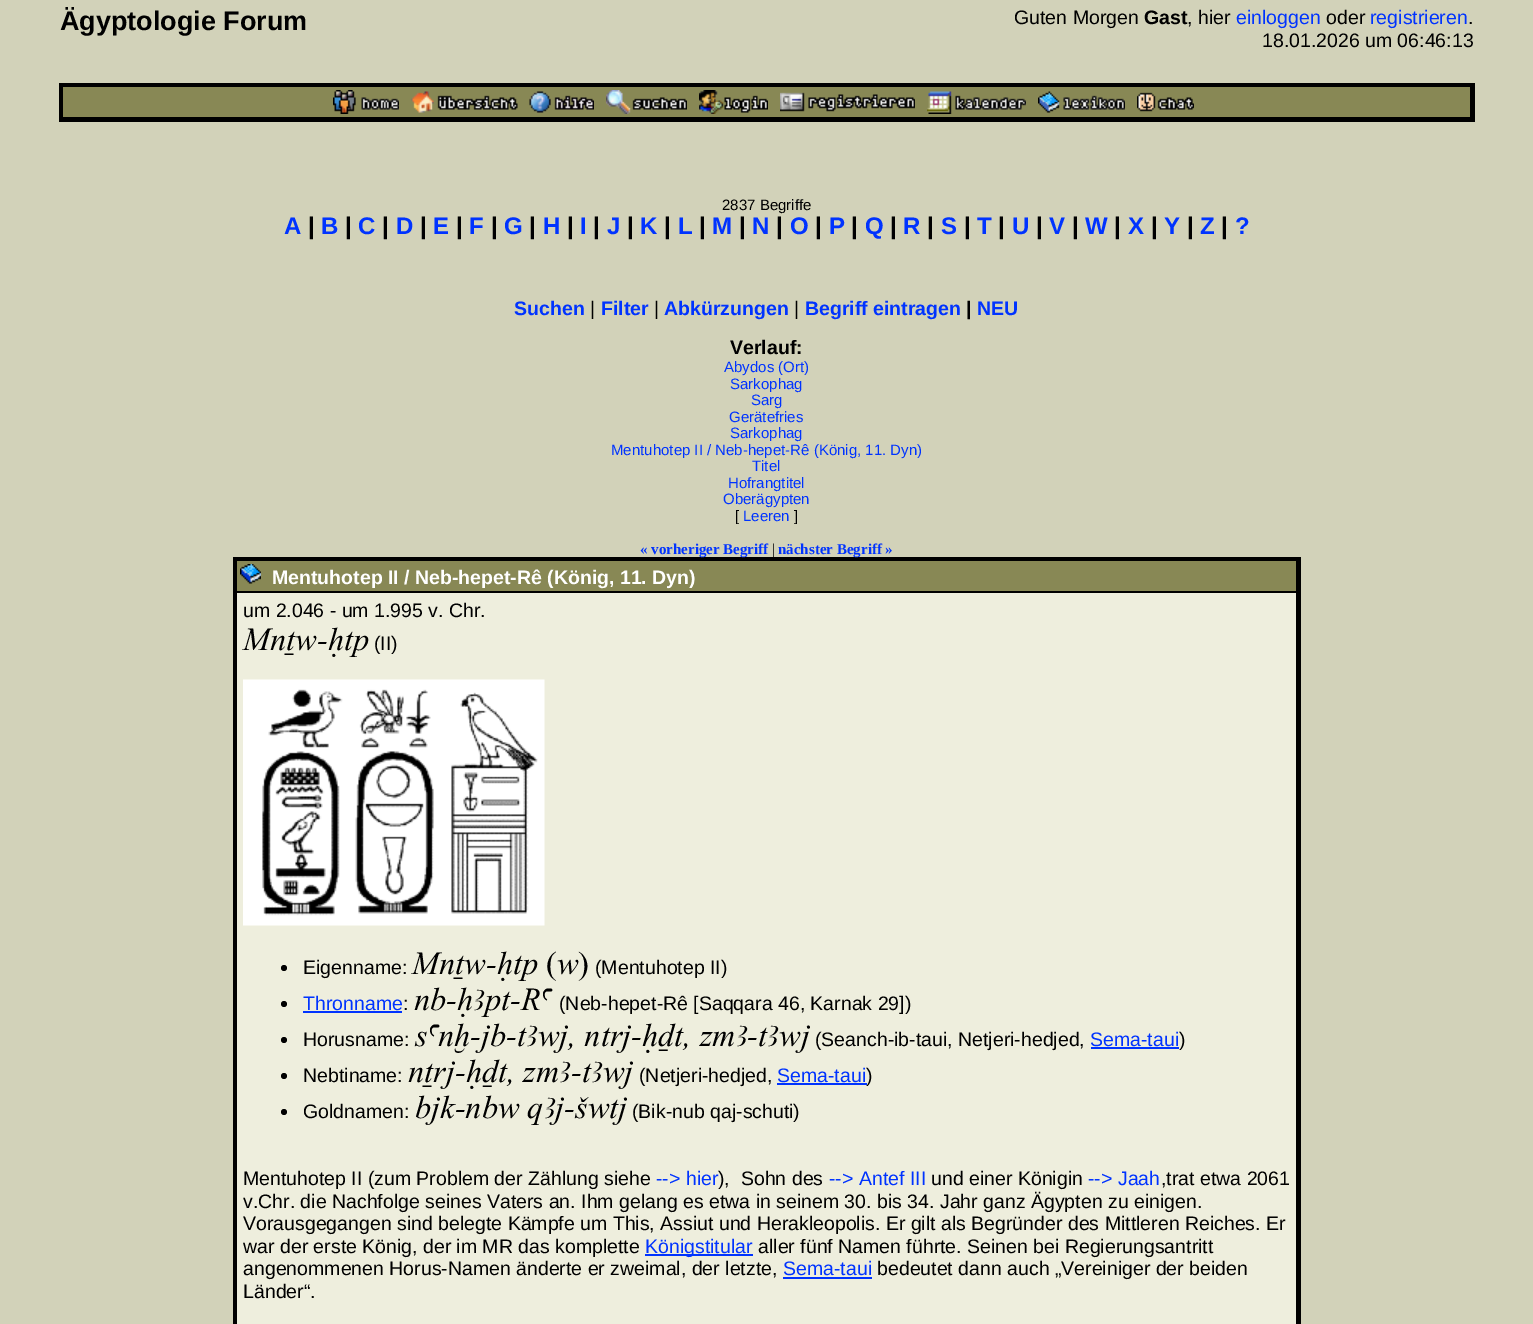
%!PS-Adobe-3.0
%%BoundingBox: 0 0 1533 1324
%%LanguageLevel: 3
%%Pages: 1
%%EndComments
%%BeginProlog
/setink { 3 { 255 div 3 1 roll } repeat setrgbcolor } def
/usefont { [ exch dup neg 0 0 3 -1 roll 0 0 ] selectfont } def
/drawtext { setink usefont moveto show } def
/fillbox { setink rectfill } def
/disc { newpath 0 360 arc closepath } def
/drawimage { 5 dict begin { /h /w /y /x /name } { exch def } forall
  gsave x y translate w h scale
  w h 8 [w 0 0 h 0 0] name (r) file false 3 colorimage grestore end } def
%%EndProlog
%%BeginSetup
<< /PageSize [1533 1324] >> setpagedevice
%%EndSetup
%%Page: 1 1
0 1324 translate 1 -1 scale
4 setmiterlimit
0 0 1533 1324 210 210 185 fillbox
(Ägyptologie Forum) 60 30 /LiberationSans-Bold 27 0 0 0 drawtext
(Guten Morgen) 1014 24 /LiberationSans-Regular 19.5 0 0 0 drawtext
(Gast) 1144 24 /LiberationSans-Bold 19.5 0 0 0 drawtext
(, hier) 1187 24 /LiberationSans-Regular 19.5 0 0 0 drawtext
(einloggen) 1236 24 /LiberationSans-Regular 19.5 0 51 255 drawtext
(oder) 1326 24 /LiberationSans-Regular 19.5 0 0 0 drawtext
(registrieren) 1370 24 /LiberationSans-Regular 19.5 0 51 255 drawtext
(.) 1468 24 /LiberationSans-Regular 19.5 0 0 0 drawtext
(18.01.2026 um 06:46:13) 1262 47 /LiberationSans-Regular 19.5 0 0 0 drawtext
59 83 1416 39 0 0 0 fillbox
63 87 1407 30 136 136 85 fillbox
(assets/img1.rgb) 333 90 66 24 drawimage
(assets/img2.rgb) 411 91 107 22 drawimage
(assets/img3.rgb) 529 91 65 22 drawimage
(assets/img4.rgb) 606 90 81 24 drawimage
(assets/img5.rgb) 699 90 69 24 drawimage
(assets/img6.rgb) 780 92 135 20 drawimage
(assets/img7.rgb) 927 91 99 23 drawimage
(assets/img8.rgb) 1038 91 87 22 drawimage
(assets/img9.rgb) 1137 92 57 20 drawimage
(2837 Begriffe) 722 210 /LiberationSans-Regular 15 0 0 0 drawtext
(A) 284 234 /LiberationSans-Bold 24 0 51 255 drawtext
(|) 308 234 /LiberationSans-Bold 24 0 0 0 drawtext
(B) 321 234 /LiberationSans-Bold 24 0 51 255 drawtext
(|) 345 234 /LiberationSans-Bold 24 0 0 0 drawtext
(C) 358 234 /LiberationSans-Bold 24 0 51 255 drawtext
(|) 382 234 /LiberationSans-Bold 24 0 0 0 drawtext
(D) 396 234 /LiberationSans-Bold 24 0 51 255 drawtext
(|) 420 234 /LiberationSans-Bold 24 0 0 0 drawtext
(E) 433 234 /LiberationSans-Bold 24 0 51 255 drawtext
(|) 456 234 /LiberationSans-Bold 24 0 0 0 drawtext
(F) 469 234 /LiberationSans-Bold 24 0 51 255 drawtext
(|) 491 234 /LiberationSans-Bold 24 0 0 0 drawtext
(G) 504 234 /LiberationSans-Bold 24 0 51 255 drawtext
(|) 529 234 /LiberationSans-Bold 24 0 0 0 drawtext
(H) 543 234 /LiberationSans-Bold 24 0 51 255 drawtext
(|) 567 234 /LiberationSans-Bold 24 0 0 0 drawtext
(I) 580 234 /LiberationSans-Bold 24 0 51 255 drawtext
(|) 593 234 /LiberationSans-Bold 24 0 0 0 drawtext
(J) 607 234 /LiberationSans-Bold 24 0 51 255 drawtext
(|) 627 234 /LiberationSans-Bold 24 0 0 0 drawtext
(K) 640 234 /LiberationSans-Bold 24 0 51 255 drawtext
(|) 664 234 /LiberationSans-Bold 24 0 0 0 drawtext
(L) 678 234 /LiberationSans-Bold 24 0 51 255 drawtext
(|) 699 234 /LiberationSans-Bold 24 0 0 0 drawtext
(M) 712 234 /LiberationSans-Bold 24 0 51 255 drawtext
(|) 739 234 /LiberationSans-Bold 24 0 0 0 drawtext
(N) 752 234 /LiberationSans-Bold 24 0 51 255 drawtext
(|) 776 234 /LiberationSans-Bold 24 0 0 0 drawtext
(O) 790 234 /LiberationSans-Bold 24 0 51 255 drawtext
(|) 815 234 /LiberationSans-Bold 24 0 0 0 drawtext
(P) 829 234 /LiberationSans-Bold 24 0 51 255 drawtext
(|) 851 234 /LiberationSans-Bold 24 0 0 0 drawtext
(Q) 865 234 /LiberationSans-Bold 24 0 51 255 drawtext
(|) 890 234 /LiberationSans-Bold 24 0 0 0 drawtext
(R) 903 234 /LiberationSans-Bold 24 0 51 255 drawtext
(|) 927 234 /LiberationSans-Bold 24 0 0 0 drawtext
(S) 941 234 /LiberationSans-Bold 24 0 51 255 drawtext
(|) 964 234 /LiberationSans-Bold 24 0 0 0 drawtext
(T) 977 234 /LiberationSans-Bold 24 0 51 255 drawtext
(|) 998 234 /LiberationSans-Bold 24 0 0 0 drawtext
(U) 1012 234 /LiberationSans-Bold 24 0 51 255 drawtext
(|) 1036 234 /LiberationSans-Bold 24 0 0 0 drawtext
(V) 1049 234 /LiberationSans-Bold 24 0 51 255 drawtext
(|) 1072 234 /LiberationSans-Bold 24 0 0 0 drawtext
(W) 1085 234 /LiberationSans-Bold 24 0 51 255 drawtext
(|) 1114 234 /LiberationSans-Bold 24 0 0 0 drawtext
(X) 1128 234 /LiberationSans-Bold 24 0 51 255 drawtext
(|) 1151 234 /LiberationSans-Bold 24 0 0 0 drawtext
(Y) 1164 234 /LiberationSans-Bold 24 0 51 255 drawtext
(|) 1187 234 /LiberationSans-Bold 24 0 0 0 drawtext
(Z) 1200 234 /LiberationSans-Bold 24 0 51 255 drawtext
(|) 1221 234 /LiberationSans-Bold 24 0 0 0 drawtext
(?) 1235 234 /LiberationSans-Bold 24 0 51 255 drawtext
(Suchen) 514 315 /LiberationSans-Bold 19.5 0 51 255 drawtext
(|) 590 315 /LiberationSans-Regular 19.5 0 0 0 drawtext
(Filter) 601 315 /LiberationSans-Bold 19.5 0 51 255 drawtext
(|) 654 315 /LiberationSans-Regular 19.5 0 0 0 drawtext
(Abkürzungen) 664 315 /LiberationSans-Bold 19.5 0 51 255 drawtext
(|) 794 315 /LiberationSans-Regular 19.5 0 0 0 drawtext
(Begriff eintragen) 805 315 /LiberationSans-Bold 19.5 0 51 255 drawtext
(|) 966 315 /LiberationSans-Bold 19.5 0 0 0 drawtext
(NEU) 977 315 /LiberationSans-Bold 19.5 0 51 255 drawtext
(Verlauf:) 730 354 /LiberationSans-Bold 19.5 0 0 0 drawtext
(Abydos \(Ort\)) 724 372 /LiberationSans-Regular 15 0 51 255 drawtext
(Sarkophag) 730 389 /LiberationSans-Regular 15 0 51 255 drawtext
(Sarg) 751 405 /LiberationSans-Regular 15 0 51 255 drawtext
(Gerätefries) 729 422 /LiberationSans-Regular 15 0 51 255 drawtext
(Sarkophag) 730 438 /LiberationSans-Regular 15 0 51 255 drawtext
(Mentuhotep II / Neb-hepet-Rê \(König, 11. Dyn\)) 611 455 /LiberationSans-Regular 15 0 51 255 drawtext
(Titel) 752 471 /LiberationSans-Regular 15 0 51 255 drawtext
(Hofrangtitel) 728 488 /LiberationSans-Regular 15 0 51 255 drawtext
(Oberägypten) 723 504 /LiberationSans-Regular 15 0 51 255 drawtext
([) 735 521 /LiberationSans-Regular 15 0 0 0 drawtext
(Leeren) 743 521 /LiberationSans-Regular 15 0 51 255 drawtext
(]) 794 521 /LiberationSans-Regular 15 0 0 0 drawtext
233 557 1068 767 0 0 0 fillbox
(« vorheriger Begriff) 640 554 /LiberationSerif-Bold 15 0 51 255 drawtext
(|) 772 554 /LiberationSerif-Regular 15 0 0 0 drawtext
(nächster Begriff ») 778 554 /LiberationSerif-Bold 15 0 51 255 drawtext
237 561 1059 30 136 136 85 fillbox
(assets/img10.rgb) 240 564 21 20 drawimage
(Mentuhotep II / Neb-hepet-Rê \(König, 11. Dyn\)) 272 584 /LiberationSans-Bold 19.5 255 255 255 drawtext
237 593 1059 731 238 238 221 fillbox
(um 2.046 - um 1.995 v. Chr.) 243 617 /LiberationSans-Regular 19.5 0 0 0 drawtext
(MnTw-Htp) 243 650 /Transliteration-Italic 32.4 0 0 0 drawtext
(\(II\)) 374 650 /LiberationSans-Regular 19.5 0 0 0 drawtext
(assets/img11.rgb) 243 679 302 247 drawimage
284 968 3 disc fill
(Eigenname:) 303 974 /LiberationSans-Regular 19.5 0 0 0 drawtext
(MnTw-Htp \(w\)) 412 974 /Transliteration-Italic 32.4 0 0 0 drawtext
(\(Mentuhotep II\)) 595 974 /LiberationSans-Regular 19.5 0 0 0 drawtext
284 1004 3 disc fill
(Thronname) 303 1010 /LiberationSans-Regular 19.5 0 51 255 drawtext
(:) 403 1010 /LiberationSans-Regular 19.5 0 0 0 drawtext
303 1011 99 2 0 51 255 fillbox
(nb-HApt-Ra) 414 1010 /Transliteration-Italic 32.4 0 0 0 drawtext
(\(Neb-hepet-Rê [Saqqara 46, Karnak 29]\)) 559 1010 /LiberationSans-Regular 19.5 0 0 0 drawtext
284 1040 3 disc fill
(Horusname:) 303 1046 /LiberationSans-Regular 19.5 0 0 0 drawtext
(sanx-jb-tAwj, ntrj-HDt, zmA-tAwj) 415 1046 /Transliteration-Italic 32.4 0 0 0 drawtext
(\(Seanch-ib-taui, Netjeri-hedjed,) 815 1046 /LiberationSans-Regular 19.5 0 0 0 drawtext
(Sema-taui) 1090 1046 /LiberationSans-Regular 19.5 0 51 255 drawtext
1091 1047 88 2 0 51 255 fillbox
(\)) 1179 1046 /LiberationSans-Regular 19.5 0 0 0 drawtext
284 1076 3 disc fill
(Nebtiname:) 303 1082 /LiberationSans-Regular 19.5 0 0 0 drawtext
(nTrj-HDt, zmA-tAwj) 408 1082 /Transliteration-Italic 32.4 0 0 0 drawtext
(\(Netjeri-hedjed,) 639 1082 /LiberationSans-Regular 19.5 0 0 0 drawtext
(Sema-taui) 777 1082 /LiberationSans-Regular 19.5 0 51 255 drawtext
777 1083 90 2 0 51 255 fillbox
(\)) 866 1082 /LiberationSans-Regular 19.5 0 0 0 drawtext
284 1112 3 disc fill
(Goldnamen:) 303 1118 /LiberationSans-Regular 19.5 0 0 0 drawtext
(bjk-nbw oAj-Swtj) 415 1118 /Transliteration-Italic 32.4 0 0 0 drawtext
(\(Bik-nub qaj-schuti\)) 632 1118 /LiberationSans-Regular 19.5 0 0 0 drawtext
(Mentuhotep II \(zum Problem der Zählung siehe) 243 1185 /LiberationSans-Regular 19.5 0 0 0 drawtext
(--> hier) 656 1185 /LiberationSans-Regular 19.5 0 51 255 drawtext
(\),  Sohn des) 718 1185 /LiberationSans-Regular 19.5 0 0 0 drawtext
(--> Antef III) 829 1185 /LiberationSans-Regular 19.5 0 51 255 drawtext
(und einer Königin) 931 1185 /LiberationSans-Regular 19.5 0 0 0 drawtext
(--> Jaah) 1088 1185 /LiberationSans-Regular 19.5 0 51 255 drawtext
(,trat etwa 2061) 1161 1185 /LiberationSans-Regular 19.5 0 0 0 drawtext
(v.Chr. die Nachfolge seines Vaters an. Ihm gelang es etwa in seinem 30. bis 34. Jahr ganz Ägypten zu einigen.) 243 1208 /LiberationSans-Regular 19.5 0 0 0 drawtext
(Vorausgegangen sind belegte Kämpfe um This, Assiut und Herakleopolis. Er gilt als Begründer des Mittleren Reiches. Er) 243 1230 /LiberationSans-Regular 19.5 0 0 0 drawtext
(war der erste König, der im MR das komplette) 243 1253 /LiberationSans-Regular 19.5 0 0 0 drawtext
645 1254 108 2 0 51 255 fillbox
(Königstitular) 645 1253 /LiberationSans-Regular 19.5 0 51 255 drawtext
(aller fünf Namen führte. Seinen bei Regierungsantritt) 758 1253 /LiberationSans-Regular 19.5 0 0 0 drawtext
(angenommenen Horus-Namen änderte er zweimal, der letzte,) 243 1275 /LiberationSans-Regular 19.5 0 0 0 drawtext
(Sema-taui) 783 1275 /LiberationSans-Regular 19.5 0 51 255 drawtext
783 1277 89 2 0 51 255 fillbox
(bedeutet dann auch „Vereiniger der beiden) 877 1275 /LiberationSans-Regular 19.5 0 0 0 drawtext
(Länder“.) 243 1298 /LiberationSans-Regular 19.5 0 0 0 drawtext
showpage
%%EOF
